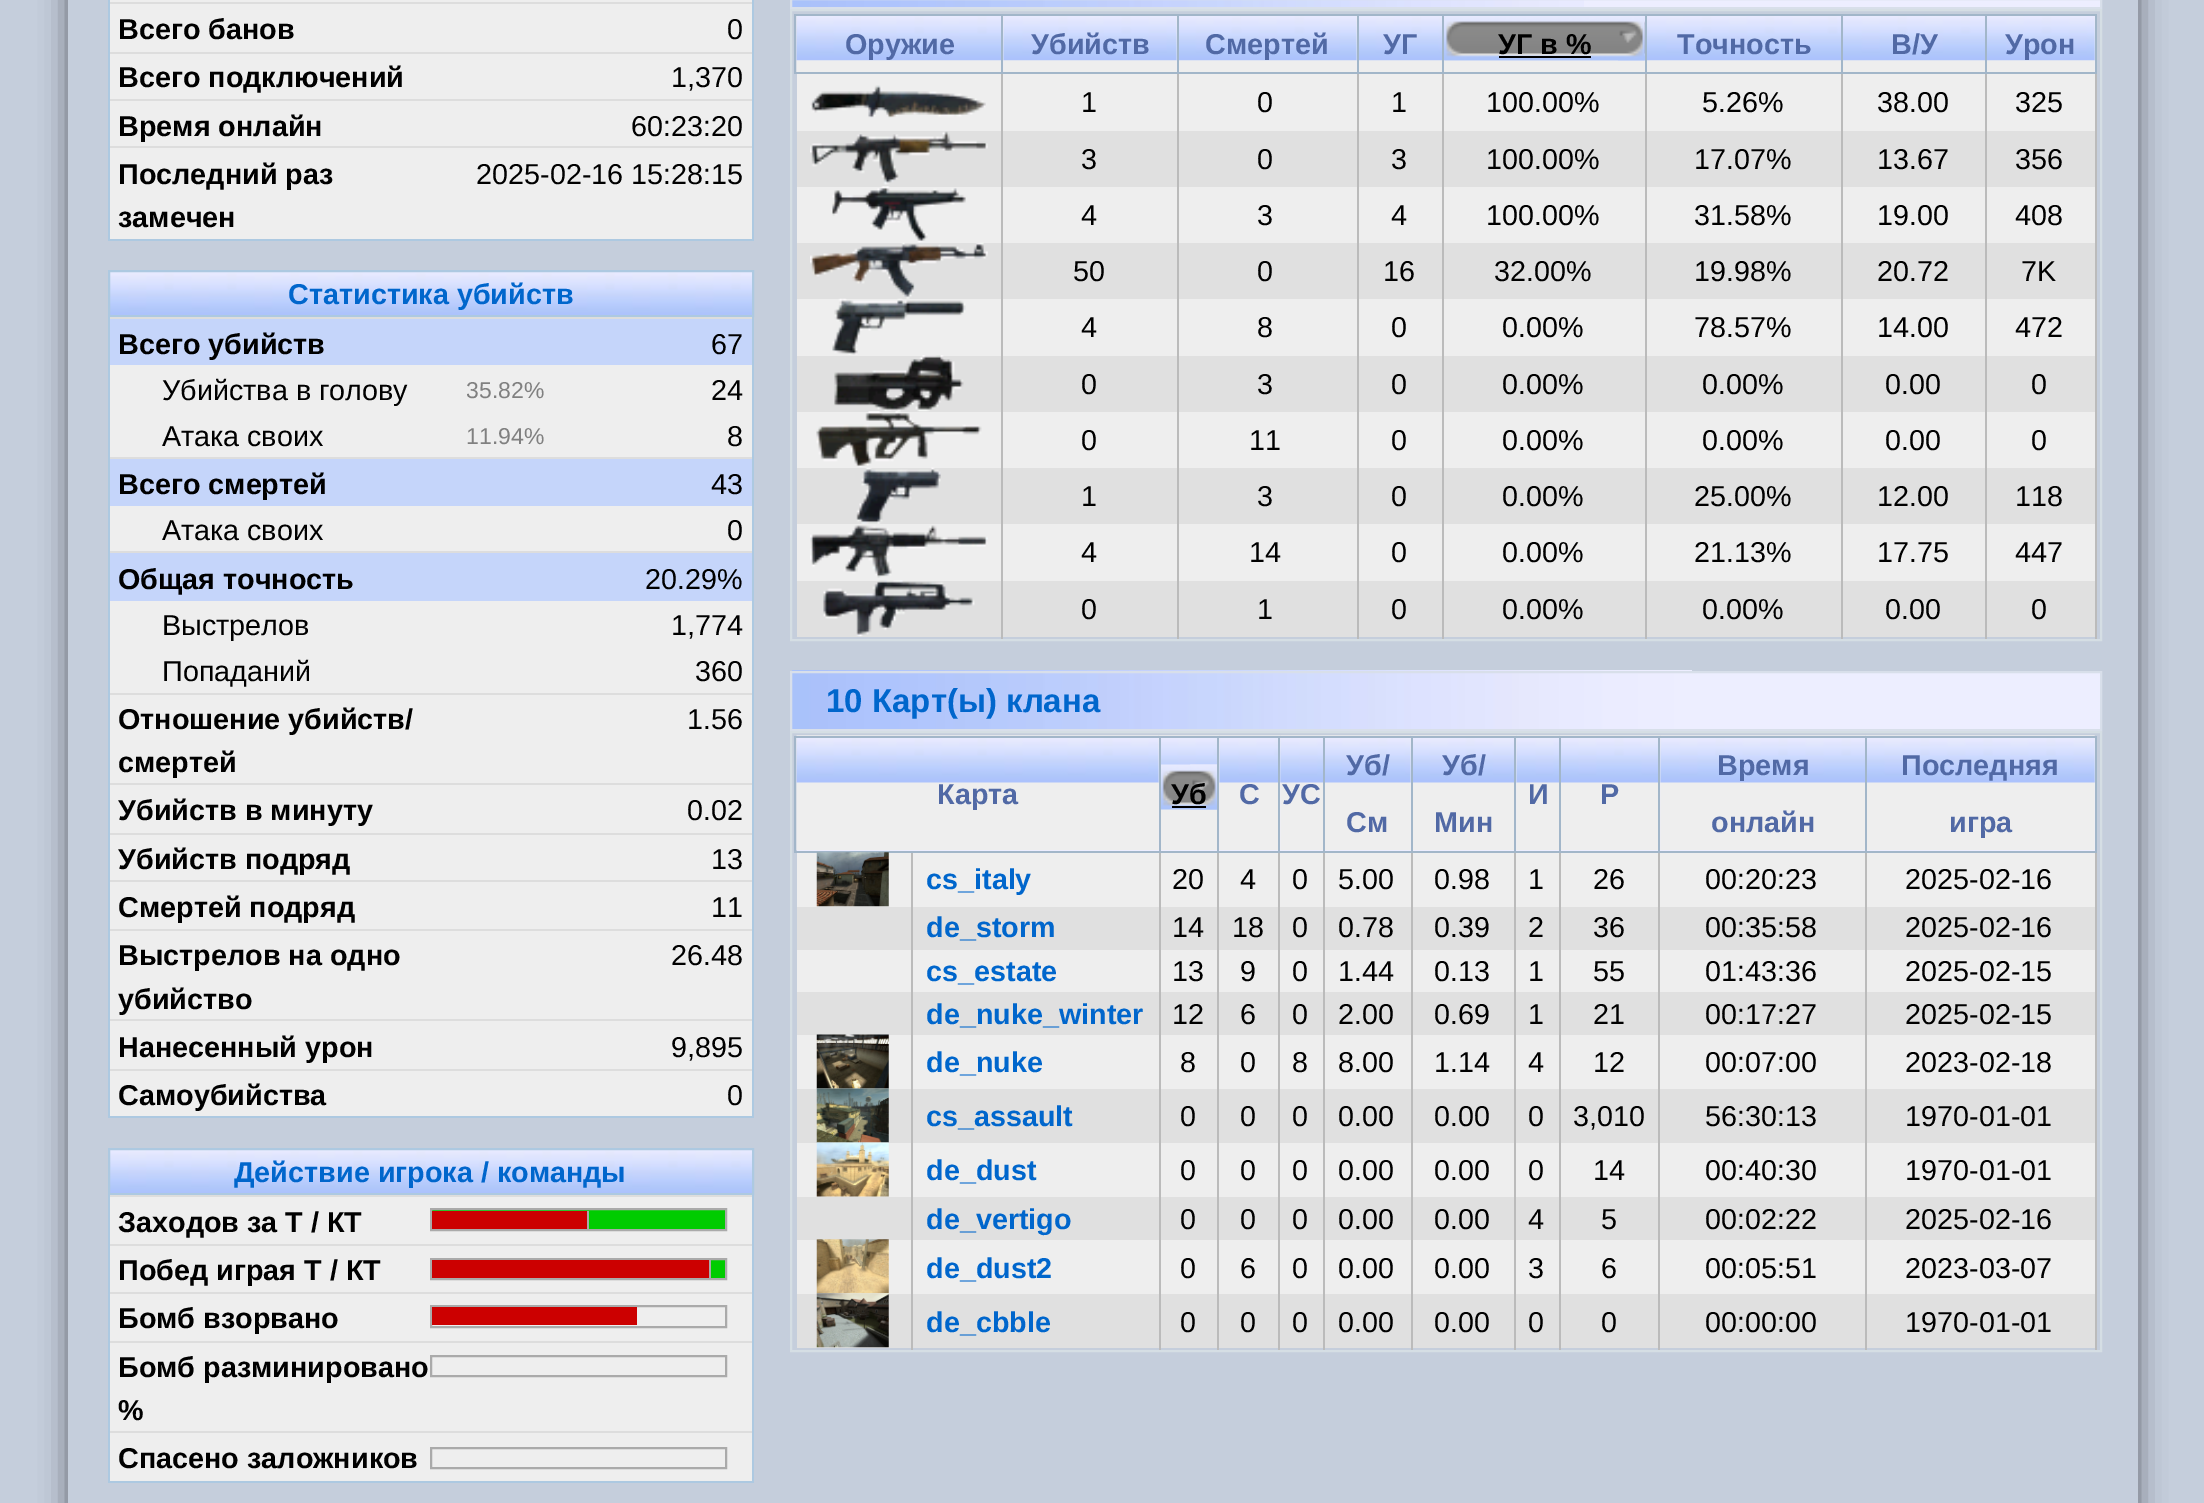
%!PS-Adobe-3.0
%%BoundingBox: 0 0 2204 1503
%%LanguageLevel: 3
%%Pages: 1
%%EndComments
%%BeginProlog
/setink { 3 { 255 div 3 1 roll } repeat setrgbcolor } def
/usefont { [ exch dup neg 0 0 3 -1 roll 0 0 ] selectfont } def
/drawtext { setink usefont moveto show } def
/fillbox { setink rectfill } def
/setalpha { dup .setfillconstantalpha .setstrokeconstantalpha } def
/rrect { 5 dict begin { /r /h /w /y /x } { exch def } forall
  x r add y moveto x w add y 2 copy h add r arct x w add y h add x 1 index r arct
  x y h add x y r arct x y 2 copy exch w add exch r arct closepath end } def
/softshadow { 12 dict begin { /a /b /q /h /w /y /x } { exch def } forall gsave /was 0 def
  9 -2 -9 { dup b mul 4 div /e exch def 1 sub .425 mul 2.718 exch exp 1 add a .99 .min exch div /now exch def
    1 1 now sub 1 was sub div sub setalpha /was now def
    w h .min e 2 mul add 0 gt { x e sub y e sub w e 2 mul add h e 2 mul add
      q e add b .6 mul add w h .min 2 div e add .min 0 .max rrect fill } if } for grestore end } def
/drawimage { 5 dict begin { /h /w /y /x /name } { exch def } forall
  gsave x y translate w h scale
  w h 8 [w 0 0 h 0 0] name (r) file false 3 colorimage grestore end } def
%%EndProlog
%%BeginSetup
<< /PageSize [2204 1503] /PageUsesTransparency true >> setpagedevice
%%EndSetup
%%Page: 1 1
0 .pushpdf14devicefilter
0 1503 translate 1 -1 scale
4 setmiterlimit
0 0 2204 1503 197 206 220 fillbox
0 0 0 setink
68 -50 2070 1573 9 13.5 0.5 softshadow
68 0 2070 1503 197 206 220 fillbox
110 0 642 239 238 238 238 fillbox
752 0 2 241 173 201 225 fillbox
108 239 646 2 173 201 225 fillbox
108 0 2 241 173 201 225 fillbox
110 2 642 2 221 221 221 fillbox
(Всего банов) 118 39 /LiberationSans-Bold 28.75 0 0 0 drawtext
(0) 727 39 /LiberationSans-Regular 28.75 0 0 0 drawtext
110 52 642 2 221 221 221 fillbox
(Всего подключений) 118 87 /LiberationSans-Bold 28.75 0 0 0 drawtext
(1,370) 671 87 /LiberationSans-Regular 28.75 0 0 0 drawtext
110 99 642 2 221 221 221 fillbox
(Время онлайн) 118 136 /LiberationSans-Bold 28.75 0 0 0 drawtext
(60:23:20) 631 136 /LiberationSans-Regular 28.75 0 0 0 drawtext
110 146 642 2 221 221 221 fillbox
(Последний раз) 118 184 /LiberationSans-Bold 28.75 0 0 0 drawtext
(замечен) 118 227 /LiberationSans-Bold 28.75 0 0 0 drawtext
(2025-02-16 15:28:15) 476 184 /LiberationSans-Regular 28.75 0 0 0 drawtext
(assets/img1.rgb) 110 272 642 43 drawimage
173 201 225 setink
2 setlinewidth
109 271 644 45 rectstroke
(Статистика убийств) 288 304 /LiberationSans-Bold 28.75 0 102 204 drawtext
110 365 642 751 238 238 238 fillbox
752 317 2 801 173 201 225 fillbox
108 1116 646 2 173 201 225 fillbox
108 317 2 801 173 201 225 fillbox
110 319 642 46 197 213 250 fillbox
110 317 642 2 221 221 221 fillbox
(Всего убийств) 118 354 /LiberationSans-Bold 28.75 0 0 0 drawtext
(67) 711 354 /LiberationSans-Regular 28.75 0 0 0 drawtext
(Убийства в голову) 162 400 /LiberationSans-Regular 28.75 0 0 0 drawtext
(35.82%) 466 398 /LiberationSans-Regular 23 128 128 128 drawtext
(24) 711 400 /LiberationSans-Regular 28.75 0 0 0 drawtext
(Атака своих) 162 446 /LiberationSans-Regular 28.75 0 0 0 drawtext
(11.94%) 466 444 /LiberationSans-Regular 23 128 128 128 drawtext
(8) 727 446 /LiberationSans-Regular 28.75 0 0 0 drawtext
110 459 642 47 197 213 250 fillbox
110 457 642 2 221 221 221 fillbox
(Всего смертей) 118 494 /LiberationSans-Bold 28.75 0 0 0 drawtext
(43) 711 494 /LiberationSans-Regular 28.75 0 0 0 drawtext
(Атака своих) 162 540 /LiberationSans-Regular 28.75 0 0 0 drawtext
(0) 727 540 /LiberationSans-Regular 28.75 0 0 0 drawtext
110 553 642 48 197 213 250 fillbox
110 551 642 2 221 221 221 fillbox
(Общая точность) 118 589 /LiberationSans-Bold 28.75 0 0 0 drawtext
(20.29%) 645 589 /LiberationSans-Regular 28.75 0 0 0 drawtext
(Выстрелов) 162 635 /LiberationSans-Regular 28.75 0 0 0 drawtext
(1,774) 671 635 /LiberationSans-Regular 28.75 0 0 0 drawtext
(Попаданий) 162 681 /LiberationSans-Regular 28.75 0 0 0 drawtext
(360) 695 681 /LiberationSans-Regular 28.75 0 0 0 drawtext
110 693 642 2 221 221 221 fillbox
(Отношение убийств/) 118 729 /LiberationSans-Bold 28.75 0 0 0 drawtext
(смертей) 118 772 /LiberationSans-Bold 28.75 0 0 0 drawtext
(1.56) 687 729 /LiberationSans-Regular 28.75 0 0 0 drawtext
110 783 642 2 221 221 221 fillbox
(Убийств в минуту) 118 820 /LiberationSans-Bold 28.75 0 0 0 drawtext
(0.02) 687 820 /LiberationSans-Regular 28.75 0 0 0 drawtext
110 833 642 2 221 221 221 fillbox
(Убийств подряд) 118 869 /LiberationSans-Bold 28.75 0 0 0 drawtext
(13) 711 869 /LiberationSans-Regular 28.75 0 0 0 drawtext
110 880 642 2 221 221 221 fillbox
(Смертей подряд) 118 917 /LiberationSans-Bold 28.75 0 0 0 drawtext
(11) 711 917 /LiberationSans-Regular 28.75 0 0 0 drawtext
110 929 642 2 221 221 221 fillbox
(Выстрелов на одно) 118 965 /LiberationSans-Bold 28.75 0 0 0 drawtext
(убийство) 118 1009 /LiberationSans-Bold 28.75 0 0 0 drawtext
(26.48) 671 965 /LiberationSans-Regular 28.75 0 0 0 drawtext
110 1019 642 2 221 221 221 fillbox
(Нанесенный урон) 118 1057 /LiberationSans-Bold 28.75 0 0 0 drawtext
(9,895) 671 1057 /LiberationSans-Regular 28.75 0 0 0 drawtext
110 1069 642 2 221 221 221 fillbox
(Самоубийства) 118 1105 /LiberationSans-Bold 28.75 0 0 0 drawtext
(0) 727 1105 /LiberationSans-Regular 28.75 0 0 0 drawtext
(assets/img2.rgb) 110 1150 642 43 drawimage
173 201 225 setink
109 1149 644 45 rectstroke
(Действие игрока / команды) 234 1182 /LiberationSans-Bold 28.75 0 102 204 drawtext
110 1197 642 284 238 238 238 fillbox
752 1195 2 288 173 201 225 fillbox
108 1481 646 2 173 201 225 fillbox
108 1195 2 288 173 201 225 fillbox
110 1195 642 2 221 221 221 fillbox
(Заходов за Т / КТ) 118 1232 /LiberationSans-Bold 28.75 0 0 0 drawtext
0 204 0 setink
431 1209 moveto 726 1209 lineto 726 1230 lineto 431 1230 lineto closepath gsave fill grestore
170 170 170 setink
stroke
432 1211 155 18 204 0 0 fillbox
587 1211 2 18 170 170 170 fillbox
110 1244 642 2 221 221 221 fillbox
(Побед играя Т / КТ) 118 1280 /LiberationSans-Bold 28.75 0 0 0 drawtext
711 1260 14 18 0 204 0 fillbox
170 170 170 setink
431 1259 295 20 rectstroke
432 1260 277 18 204 0 0 fillbox
709 1260 2 18 170 170 170 fillbox
110 1292 642 2 221 221 221 fillbox
(Бомб взорвано) 118 1328 /LiberationSans-Bold 28.75 0 0 0 drawtext
170 170 170 setink
431 1306 295 21 rectstroke
432 1307 205 18 204 0 0 fillbox
110 1341 642 2 221 221 221 fillbox
(Бомб разминировано) 118 1377 /LiberationSans-Bold 28.75 0 0 0 drawtext
(%) 118 1420 /LiberationSans-Bold 28.75 0 0 0 drawtext
170 170 170 setink
431 1356 295 20 rectstroke
110 1431 642 2 221 221 221 fillbox
(Спасено заложников) 118 1468 /LiberationSans-Bold 28.75 0 0 0 drawtext
170 170 170 setink
431 1448 295 20 rectstroke
1584 0 516 7 237 238 255 fillbox
(assets/img3.rgb) 792 0 792 7 drawimage
216 223 234 setink
791 -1 1310 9 rectstroke
213 222 228 setink
791 10 1310 630 rectstroke
(assets/img4.rgb) 796 16 208 56 drawimage
1985 14 112 2 162 182 201 fillbox
2095 72 2 567 187 187 187 fillbox
2095 14 2 60 162 182 201 fillbox
797 74 1298 57 238 238 238 fillbox
797 131 1298 56 224 224 224 fillbox
797 187 1298 56 238 238 238 fillbox
797 243 1298 56 224 224 224 fillbox
797 299 1298 57 238 238 238 fillbox
797 356 1298 56 224 224 224 fillbox
797 412 1298 56 238 238 238 fillbox
797 468 1298 56 224 224 224 fillbox
797 524 1298 57 238 238 238 fillbox
797 581 1298 56 224 224 224 fillbox
1985 72 2 567 187 187 187 fillbox
1985 72 112 2 162 182 201 fillbox
1985 14 2 60 162 182 201 fillbox
1841 14 146 2 162 182 201 fillbox
1841 72 2 567 187 187 187 fillbox
1841 72 146 2 162 182 201 fillbox
1841 14 2 60 162 182 201 fillbox
1645 14 198 2 162 182 201 fillbox
1645 72 2 567 187 187 187 fillbox
1645 72 198 2 162 182 201 fillbox
1645 14 2 60 162 182 201 fillbox
1442 14 205 2 162 182 201 fillbox
1442 72 2 567 187 187 187 fillbox
1442 72 205 2 162 182 201 fillbox
1442 14 2 60 162 182 201 fillbox
1357 14 88 2 162 182 201 fillbox
(assets/img5.rgb) 1003 16 174 56 drawimage
(assets/img6.rgb) 1176 16 181 56 drawimage
(assets/img7.rgb) 1356 16 86 56 drawimage
1357 72 2 567 187 187 187 fillbox
1357 72 88 2 162 182 201 fillbox
1357 14 2 60 162 182 201 fillbox
1177 14 182 2 162 182 201 fillbox
1177 72 2 567 187 187 187 fillbox
1177 72 182 2 162 182 201 fillbox
1177 14 2 60 162 182 201 fillbox
1001 14 178 2 162 182 201 fillbox
1001 72 2 567 187 187 187 fillbox
1001 72 178 2 162 182 201 fillbox
1001 14 2 60 162 182 201 fillbox
794 14 210 2 162 182 201 fillbox
794 72 210 2 162 182 201 fillbox
794 14 2 60 162 182 201 fillbox
(Оружие) 845 54 /LiberationSans-Bold 28.75 81 105 165 drawtext
(Убийств) 1031 54 /LiberationSans-Bold 28.75 81 105 165 drawtext
(Смертей) 1205 54 /LiberationSans-Bold 28.75 81 105 165 drawtext
(УГ) 1383 54 /LiberationSans-Bold 28.75 81 105 165 drawtext
(assets/img8.rgb) 1444 16 201 56 drawimage
(assets/img9.rgb) 1444 16 201 45 drawimage
(assets/img10.rgb) 1618 21 27 40 drawimage
(УГ в %) 1498 54 /LiberationSans-Bold 28.75 0 0 0 drawtext
1499 56 92 2 0 0 0 fillbox
(assets/img11.rgb) 1647 16 194 56 drawimage
(Точность) 1677 54 /LiberationSans-Bold 28.75 81 105 165 drawtext
(assets/img12.rgb) 1843 16 142 56 drawimage
(В/У) 1891 54 /LiberationSans-Bold 28.75 81 105 165 drawtext
(assets/img13.rgb) 1987 16 108 56 drawimage
(Урон) 2005 54 /LiberationSans-Bold 28.75 81 105 165 drawtext
(assets/img14.rgb) 810 85 176 33 drawimage
(1) 1081 112 /LiberationSans-Regular 28.75 0 0 0 drawtext
(0) 1257 112 /LiberationSans-Regular 28.75 0 0 0 drawtext
(1) 1391 112 /LiberationSans-Regular 28.75 0 0 0 drawtext
(100.00%) 1486 112 /LiberationSans-Regular 28.75 0 0 0 drawtext
(5.26%) 1702 112 /LiberationSans-Regular 28.75 0 0 0 drawtext
(38.00) 1877 112 /LiberationSans-Regular 28.75 0 0 0 drawtext
(325) 2015 112 /LiberationSans-Regular 28.75 0 0 0 drawtext
(assets/img15.rgb) 810 131 178 54 drawimage
(3) 1081 169 /LiberationSans-Regular 28.75 0 0 0 drawtext
(0) 1257 169 /LiberationSans-Regular 28.75 0 0 0 drawtext
(3) 1391 169 /LiberationSans-Regular 28.75 0 0 0 drawtext
(100.00%) 1486 169 /LiberationSans-Regular 28.75 0 0 0 drawtext
(17.07%) 1694 169 /LiberationSans-Regular 28.75 0 0 0 drawtext
(13.67) 1877 169 /LiberationSans-Regular 28.75 0 0 0 drawtext
(356) 2015 169 /LiberationSans-Regular 28.75 0 0 0 drawtext
(assets/img16.rgb) 831 186 135 57 drawimage
(4) 1081 225 /LiberationSans-Regular 28.75 0 0 0 drawtext
(3) 1257 225 /LiberationSans-Regular 28.75 0 0 0 drawtext
(4) 1391 225 /LiberationSans-Regular 28.75 0 0 0 drawtext
(100.00%) 1486 225 /LiberationSans-Regular 28.75 0 0 0 drawtext
(31.58%) 1694 225 /LiberationSans-Regular 28.75 0 0 0 drawtext
(19.00) 1877 225 /LiberationSans-Regular 28.75 0 0 0 drawtext
(408) 2015 225 /LiberationSans-Regular 28.75 0 0 0 drawtext
(assets/img17.rgb) 810 242 178 57 drawimage
(50) 1073 281 /LiberationSans-Regular 28.75 0 0 0 drawtext
(0) 1257 281 /LiberationSans-Regular 28.75 0 0 0 drawtext
(16) 1383 281 /LiberationSans-Regular 28.75 0 0 0 drawtext
(32.00%) 1494 281 /LiberationSans-Regular 28.75 0 0 0 drawtext
(19.98%) 1694 281 /LiberationSans-Regular 28.75 0 0 0 drawtext
(20.72) 1877 281 /LiberationSans-Regular 28.75 0 0 0 drawtext
(7K) 2021 281 /LiberationSans-Regular 28.75 0 0 0 drawtext
(assets/img18.rgb) 832 298 134 57 drawimage
(4) 1081 337 /LiberationSans-Regular 28.75 0 0 0 drawtext
(8) 1257 337 /LiberationSans-Regular 28.75 0 0 0 drawtext
(0) 1391 337 /LiberationSans-Regular 28.75 0 0 0 drawtext
(0.00%) 1502 337 /LiberationSans-Regular 28.75 0 0 0 drawtext
(78.57%) 1694 337 /LiberationSans-Regular 28.75 0 0 0 drawtext
(14.00) 1877 337 /LiberationSans-Regular 28.75 0 0 0 drawtext
(472) 2015 337 /LiberationSans-Regular 28.75 0 0 0 drawtext
(assets/img19.rgb) 834 355 130 57 drawimage
(0) 1081 394 /LiberationSans-Regular 28.75 0 0 0 drawtext
(3) 1257 394 /LiberationSans-Regular 28.75 0 0 0 drawtext
(0) 1391 394 /LiberationSans-Regular 28.75 0 0 0 drawtext
(0.00%) 1502 394 /LiberationSans-Regular 28.75 0 0 0 drawtext
(0.00%) 1702 394 /LiberationSans-Regular 28.75 0 0 0 drawtext
(0.00) 1885 394 /LiberationSans-Regular 28.75 0 0 0 drawtext
(0) 2031 394 /LiberationSans-Regular 28.75 0 0 0 drawtext
(assets/img20.rgb) 816 411 166 56 drawimage
(0) 1081 450 /LiberationSans-Regular 28.75 0 0 0 drawtext
(11) 1249 450 /LiberationSans-Regular 28.75 0 0 0 drawtext
(0) 1391 450 /LiberationSans-Regular 28.75 0 0 0 drawtext
(0.00%) 1502 450 /LiberationSans-Regular 28.75 0 0 0 drawtext
(0.00%) 1702 450 /LiberationSans-Regular 28.75 0 0 0 drawtext
(0.00) 1885 450 /LiberationSans-Regular 28.75 0 0 0 drawtext
(0) 2031 450 /LiberationSans-Regular 28.75 0 0 0 drawtext
(assets/img21.rgb) 856 467 85 57 drawimage
(1) 1081 506 /LiberationSans-Regular 28.75 0 0 0 drawtext
(3) 1257 506 /LiberationSans-Regular 28.75 0 0 0 drawtext
(0) 1391 506 /LiberationSans-Regular 28.75 0 0 0 drawtext
(0.00%) 1502 506 /LiberationSans-Regular 28.75 0 0 0 drawtext
(25.00%) 1694 506 /LiberationSans-Regular 28.75 0 0 0 drawtext
(12.00) 1877 506 /LiberationSans-Regular 28.75 0 0 0 drawtext
(118) 2015 506 /LiberationSans-Regular 28.75 0 0 0 drawtext
(assets/img22.rgb) 810 525 178 53 drawimage
(4) 1081 562 /LiberationSans-Regular 28.75 0 0 0 drawtext
(14) 1249 562 /LiberationSans-Regular 28.75 0 0 0 drawtext
(0) 1391 562 /LiberationSans-Regular 28.75 0 0 0 drawtext
(0.00%) 1502 562 /LiberationSans-Regular 28.75 0 0 0 drawtext
(21.13%) 1694 562 /LiberationSans-Regular 28.75 0 0 0 drawtext
(17.75) 1877 562 /LiberationSans-Regular 28.75 0 0 0 drawtext
(447) 2015 562 /LiberationSans-Regular 28.75 0 0 0 drawtext
(assets/img23.rgb) 823 580 152 57 drawimage
(0) 1081 619 /LiberationSans-Regular 28.75 0 0 0 drawtext
(1) 1257 619 /LiberationSans-Regular 28.75 0 0 0 drawtext
(0) 1391 619 /LiberationSans-Regular 28.75 0 0 0 drawtext
(0.00%) 1502 619 /LiberationSans-Regular 28.75 0 0 0 drawtext
(0.00%) 1702 619 /LiberationSans-Regular 28.75 0 0 0 drawtext
(0.00) 1885 619 /LiberationSans-Regular 28.75 0 0 0 drawtext
(0) 2031 619 /LiberationSans-Regular 28.75 0 0 0 drawtext
1692 673 408 56 237 238 255 fillbox
(assets/img24.rgb) 792 670 900 59 drawimage
216 223 234 setink
791 672 1310 58 rectstroke
(10 Карт\(ы\) клана) 826 712 /LiberationSans-Bold 33 0 102 204 drawtext
213 222 228 setink
791 732 1310 619 rectstroke
797 738 362 113 237 238 255 fillbox
(assets/img25.rgb) 796 735 363 115 drawimage
1161 738 59 113 237 238 255 fillbox
(assets/img26.rgb) 1158 735 62 115 drawimage
(assets/img29.rgb) 1219 735 62 115 drawimage
1280 738 43 113 237 238 255 fillbox
(assets/img30.rgb) 1280 735 43 115 drawimage
1325 738 86 113 237 238 255 fillbox
(assets/img31.rgb) 1323 735 88 115 drawimage
1413 738 104 113 237 238 255 fillbox
(assets/img32.rgb) 1410 735 107 115 drawimage
(assets/img33.rgb) 1516 735 44 115 drawimage
1561 738 100 113 237 238 255 fillbox
(assets/img34.rgb) 1559 735 102 115 drawimage
(assets/img35.rgb) 1660 735 206 115 drawimage
1867 738 228 113 237 238 255 fillbox
(assets/img36.rgb) 1865 735 230 115 drawimage
1865 736 232 2 162 182 201 fillbox
2095 851 2 499 187 187 187 fillbox
2095 736 2 117 162 182 201 fillbox
797 853 1298 54 238 238 238 fillbox
797 907 1298 43 224 224 224 fillbox
797 950 1298 42 238 238 238 fillbox
797 992 1298 43 224 224 224 fillbox
797 1035 1298 54 238 238 238 fillbox
797 1089 1298 54 224 224 224 fillbox
797 1143 1298 54 238 238 238 fillbox
797 1197 1298 43 224 224 224 fillbox
797 1240 1298 54 238 238 238 fillbox
797 1294 1298 54 224 224 224 fillbox
1865 851 2 499 187 187 187 fillbox
1865 851 232 2 162 182 201 fillbox
1865 736 2 117 162 182 201 fillbox
1658 736 210 2 162 182 201 fillbox
1658 851 2 499 187 187 187 fillbox
1658 851 210 2 162 182 201 fillbox
1658 736 2 117 162 182 201 fillbox
1559 736 102 2 162 182 201 fillbox
1559 851 2 499 187 187 187 fillbox
1559 851 102 2 162 182 201 fillbox
1559 736 2 117 162 182 201 fillbox
1514 736 48 2 162 182 201 fillbox
1514 851 2 499 187 187 187 fillbox
1514 851 48 2 162 182 201 fillbox
1514 736 2 117 162 182 201 fillbox
1411 736 106 2 162 182 201 fillbox
1411 851 2 499 187 187 187 fillbox
1411 851 106 2 162 182 201 fillbox
1411 736 2 117 162 182 201 fillbox
1323 736 90 2 162 182 201 fillbox
1323 851 2 499 187 187 187 fillbox
1323 851 90 2 162 182 201 fillbox
1323 736 2 117 162 182 201 fillbox
1278 736 47 2 162 182 201 fillbox
1278 851 2 499 187 187 187 fillbox
1278 851 47 2 162 182 201 fillbox
1278 736 2 117 162 182 201 fillbox
1217 736 63 2 162 182 201 fillbox
1217 851 2 499 187 187 187 fillbox
1217 851 63 2 162 182 201 fillbox
1217 736 2 117 162 182 201 fillbox
1159 736 61 2 162 182 201 fillbox
1159 851 2 499 187 187 187 fillbox
1159 851 61 2 162 182 201 fillbox
1159 736 2 117 162 182 201 fillbox
794 736 367 2 162 182 201 fillbox
911 851 2 499 187 187 187 fillbox
794 851 367 2 162 182 201 fillbox
794 736 2 117 162 182 201 fillbox
(Карта) 937 804 /LiberationSans-Bold 28.75 81 105 165 drawtext
(assets/img27.rgb) 1161 764 56 46 drawimage
(assets/img28.rgb) 1190 764 27 46 drawimage
(Уб) 1171 804 /LiberationSans-Bold 28.75 0 0 0 drawtext
1172 806 34 2 0 0 0 fillbox
1220 850 58 1 237 238 255 fillbox
(С) 1239 804 /LiberationSans-Bold 28.75 81 105 165 drawtext
(УС) 1282 804 /LiberationSans-Bold 28.75 81 105 165 drawtext
(Уб/) 1346 775 /LiberationSans-Bold 28.75 81 105 165 drawtext
(См) 1346 832 /LiberationSans-Bold 28.75 81 105 165 drawtext
(Уб/) 1442 775 /LiberationSans-Bold 28.75 81 105 165 drawtext
(Мин) 1434 832 /LiberationSans-Bold 28.75 81 105 165 drawtext
1517 850 42 1 237 238 255 fillbox
(И) 1528 804 /LiberationSans-Bold 28.75 81 105 165 drawtext
(Р) 1600 804 /LiberationSans-Bold 28.75 81 105 165 drawtext
1661 850 204 1 237 238 255 fillbox
(Время) 1717 775 /LiberationSans-Bold 28.75 81 105 165 drawtext
(онлайн) 1711 832 /LiberationSans-Bold 28.75 81 105 165 drawtext
(Последняя) 1901 775 /LiberationSans-Bold 28.75 81 105 165 drawtext
(игра) 1949 832 /LiberationSans-Bold 28.75 81 105 165 drawtext
(assets/img37.rgb) 816 852 73 55 drawimage
(cs_italy) 926 889 /LiberationSans-Bold 28.75 0 102 204 drawtext
(20) 1172 889 /LiberationSans-Regular 28.75 0 0 0 drawtext
(4) 1240 889 /LiberationSans-Regular 28.75 0 0 0 drawtext
(0) 1292 889 /LiberationSans-Regular 28.75 0 0 0 drawtext
(5.00) 1338 889 /LiberationSans-Regular 28.75 0 0 0 drawtext
(0.98) 1434 889 /LiberationSans-Regular 28.75 0 0 0 drawtext
(1) 1528 889 /LiberationSans-Regular 28.75 0 0 0 drawtext
(26) 1593 889 /LiberationSans-Regular 28.75 0 0 0 drawtext
(00:20:23) 1705 889 /LiberationSans-Regular 28.75 0 0 0 drawtext
(2025-02-16) 1905 889 /LiberationSans-Regular 28.75 0 0 0 drawtext
(de_storm) 926 937 /LiberationSans-Bold 28.75 0 102 204 drawtext
(14) 1172 937 /LiberationSans-Regular 28.75 0 0 0 drawtext
(18) 1232 937 /LiberationSans-Regular 28.75 0 0 0 drawtext
(0) 1292 937 /LiberationSans-Regular 28.75 0 0 0 drawtext
(0.78) 1338 937 /LiberationSans-Regular 28.75 0 0 0 drawtext
(0.39) 1434 937 /LiberationSans-Regular 28.75 0 0 0 drawtext
(2) 1528 937 /LiberationSans-Regular 28.75 0 0 0 drawtext
(36) 1593 937 /LiberationSans-Regular 28.75 0 0 0 drawtext
(00:35:58) 1705 937 /LiberationSans-Regular 28.75 0 0 0 drawtext
(2025-02-16) 1905 937 /LiberationSans-Regular 28.75 0 0 0 drawtext
(cs_estate) 926 981 /LiberationSans-Bold 28.75 0 102 204 drawtext
(13) 1172 981 /LiberationSans-Regular 28.75 0 0 0 drawtext
(9) 1240 981 /LiberationSans-Regular 28.75 0 0 0 drawtext
(0) 1292 981 /LiberationSans-Regular 28.75 0 0 0 drawtext
(1.44) 1338 981 /LiberationSans-Regular 28.75 0 0 0 drawtext
(0.13) 1434 981 /LiberationSans-Regular 28.75 0 0 0 drawtext
(1) 1528 981 /LiberationSans-Regular 28.75 0 0 0 drawtext
(55) 1593 981 /LiberationSans-Regular 28.75 0 0 0 drawtext
(01:43:36) 1705 981 /LiberationSans-Regular 28.75 0 0 0 drawtext
(2025-02-15) 1905 981 /LiberationSans-Regular 28.75 0 0 0 drawtext
(de_nuke_winter) 926 1024 /LiberationSans-Bold 28.75 0 102 204 drawtext
(12) 1172 1024 /LiberationSans-Regular 28.75 0 0 0 drawtext
(6) 1240 1024 /LiberationSans-Regular 28.75 0 0 0 drawtext
(0) 1292 1024 /LiberationSans-Regular 28.75 0 0 0 drawtext
(2.00) 1338 1024 /LiberationSans-Regular 28.75 0 0 0 drawtext
(0.69) 1434 1024 /LiberationSans-Regular 28.75 0 0 0 drawtext
(1) 1528 1024 /LiberationSans-Regular 28.75 0 0 0 drawtext
(21) 1593 1024 /LiberationSans-Regular 28.75 0 0 0 drawtext
(00:17:27) 1705 1024 /LiberationSans-Regular 28.75 0 0 0 drawtext
(2025-02-15) 1905 1024 /LiberationSans-Regular 28.75 0 0 0 drawtext
(assets/img38.rgb) 816 1034 73 55 drawimage
(de_nuke) 926 1072 /LiberationSans-Bold 28.75 0 102 204 drawtext
(8) 1180 1072 /LiberationSans-Regular 28.75 0 0 0 drawtext
(0) 1240 1072 /LiberationSans-Regular 28.75 0 0 0 drawtext
(8) 1292 1072 /LiberationSans-Regular 28.75 0 0 0 drawtext
(8.00) 1338 1072 /LiberationSans-Regular 28.75 0 0 0 drawtext
(1.14) 1434 1072 /LiberationSans-Regular 28.75 0 0 0 drawtext
(4) 1528 1072 /LiberationSans-Regular 28.75 0 0 0 drawtext
(12) 1593 1072 /LiberationSans-Regular 28.75 0 0 0 drawtext
(00:07:00) 1705 1072 /LiberationSans-Regular 28.75 0 0 0 drawtext
(2023-02-18) 1905 1072 /LiberationSans-Regular 28.75 0 0 0 drawtext
(assets/img39.rgb) 816 1088 73 55 drawimage
(cs_assault) 926 1126 /LiberationSans-Bold 28.75 0 102 204 drawtext
(0) 1180 1126 /LiberationSans-Regular 28.75 0 0 0 drawtext
(0) 1240 1126 /LiberationSans-Regular 28.75 0 0 0 drawtext
(0) 1292 1126 /LiberationSans-Regular 28.75 0 0 0 drawtext
(0.00) 1338 1126 /LiberationSans-Regular 28.75 0 0 0 drawtext
(0.00) 1434 1126 /LiberationSans-Regular 28.75 0 0 0 drawtext
(0) 1528 1126 /LiberationSans-Regular 28.75 0 0 0 drawtext
(3,010) 1573 1126 /LiberationSans-Regular 28.75 0 0 0 drawtext
(56:30:13) 1705 1126 /LiberationSans-Regular 28.75 0 0 0 drawtext
(1970-01-01) 1905 1126 /LiberationSans-Regular 28.75 0 0 0 drawtext
(assets/img40.rgb) 816 1142 73 55 drawimage
(de_dust) 926 1180 /LiberationSans-Bold 28.75 0 102 204 drawtext
(0) 1180 1180 /LiberationSans-Regular 28.75 0 0 0 drawtext
(0) 1240 1180 /LiberationSans-Regular 28.75 0 0 0 drawtext
(0) 1292 1180 /LiberationSans-Regular 28.75 0 0 0 drawtext
(0.00) 1338 1180 /LiberationSans-Regular 28.75 0 0 0 drawtext
(0.00) 1434 1180 /LiberationSans-Regular 28.75 0 0 0 drawtext
(0) 1528 1180 /LiberationSans-Regular 28.75 0 0 0 drawtext
(14) 1593 1180 /LiberationSans-Regular 28.75 0 0 0 drawtext
(00:40:30) 1705 1180 /LiberationSans-Regular 28.75 0 0 0 drawtext
(1970-01-01) 1905 1180 /LiberationSans-Regular 28.75 0 0 0 drawtext
(de_vertigo) 926 1229 /LiberationSans-Bold 28.75 0 102 204 drawtext
(0) 1180 1229 /LiberationSans-Regular 28.75 0 0 0 drawtext
(0) 1240 1229 /LiberationSans-Regular 28.75 0 0 0 drawtext
(0) 1292 1229 /LiberationSans-Regular 28.75 0 0 0 drawtext
(0.00) 1338 1229 /LiberationSans-Regular 28.75 0 0 0 drawtext
(0.00) 1434 1229 /LiberationSans-Regular 28.75 0 0 0 drawtext
(4) 1528 1229 /LiberationSans-Regular 28.75 0 0 0 drawtext
(5) 1601 1229 /LiberationSans-Regular 28.75 0 0 0 drawtext
(00:02:22) 1705 1229 /LiberationSans-Regular 28.75 0 0 0 drawtext
(2025-02-16) 1905 1229 /LiberationSans-Regular 28.75 0 0 0 drawtext
(assets/img41.rgb) 816 1239 73 55 drawimage
(de_dust2) 926 1278 /LiberationSans-Bold 28.75 0 102 204 drawtext
(0) 1180 1278 /LiberationSans-Regular 28.75 0 0 0 drawtext
(6) 1240 1278 /LiberationSans-Regular 28.75 0 0 0 drawtext
(0) 1292 1278 /LiberationSans-Regular 28.75 0 0 0 drawtext
(0.00) 1338 1278 /LiberationSans-Regular 28.75 0 0 0 drawtext
(0.00) 1434 1278 /LiberationSans-Regular 28.75 0 0 0 drawtext
(3) 1528 1278 /LiberationSans-Regular 28.75 0 0 0 drawtext
(6) 1601 1278 /LiberationSans-Regular 28.75 0 0 0 drawtext
(00:05:51) 1705 1278 /LiberationSans-Regular 28.75 0 0 0 drawtext
(2023-03-07) 1905 1278 /LiberationSans-Regular 28.75 0 0 0 drawtext
(assets/img42.rgb) 816 1293 73 55 drawimage
(de_cbble) 926 1332 /LiberationSans-Bold 28.75 0 102 204 drawtext
(0) 1180 1332 /LiberationSans-Regular 28.75 0 0 0 drawtext
(0) 1240 1332 /LiberationSans-Regular 28.75 0 0 0 drawtext
(0) 1292 1332 /LiberationSans-Regular 28.75 0 0 0 drawtext
(0.00) 1338 1332 /LiberationSans-Regular 28.75 0 0 0 drawtext
(0.00) 1434 1332 /LiberationSans-Regular 28.75 0 0 0 drawtext
(0) 1528 1332 /LiberationSans-Regular 28.75 0 0 0 drawtext
(0) 1601 1332 /LiberationSans-Regular 28.75 0 0 0 drawtext
(00:00:00) 1705 1332 /LiberationSans-Regular 28.75 0 0 0 drawtext
(1970-01-01) 1905 1332 /LiberationSans-Regular 28.75 0 0 0 drawtext
.poppdf14devicefilter showpage
%%EOF
